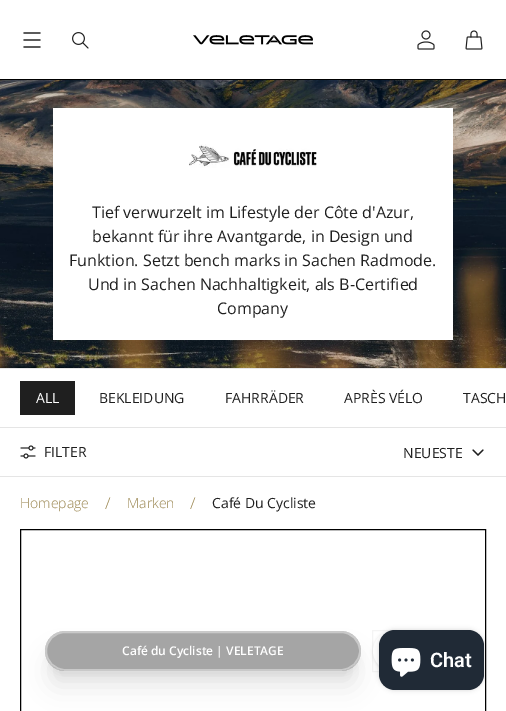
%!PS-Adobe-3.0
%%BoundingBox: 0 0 506 711
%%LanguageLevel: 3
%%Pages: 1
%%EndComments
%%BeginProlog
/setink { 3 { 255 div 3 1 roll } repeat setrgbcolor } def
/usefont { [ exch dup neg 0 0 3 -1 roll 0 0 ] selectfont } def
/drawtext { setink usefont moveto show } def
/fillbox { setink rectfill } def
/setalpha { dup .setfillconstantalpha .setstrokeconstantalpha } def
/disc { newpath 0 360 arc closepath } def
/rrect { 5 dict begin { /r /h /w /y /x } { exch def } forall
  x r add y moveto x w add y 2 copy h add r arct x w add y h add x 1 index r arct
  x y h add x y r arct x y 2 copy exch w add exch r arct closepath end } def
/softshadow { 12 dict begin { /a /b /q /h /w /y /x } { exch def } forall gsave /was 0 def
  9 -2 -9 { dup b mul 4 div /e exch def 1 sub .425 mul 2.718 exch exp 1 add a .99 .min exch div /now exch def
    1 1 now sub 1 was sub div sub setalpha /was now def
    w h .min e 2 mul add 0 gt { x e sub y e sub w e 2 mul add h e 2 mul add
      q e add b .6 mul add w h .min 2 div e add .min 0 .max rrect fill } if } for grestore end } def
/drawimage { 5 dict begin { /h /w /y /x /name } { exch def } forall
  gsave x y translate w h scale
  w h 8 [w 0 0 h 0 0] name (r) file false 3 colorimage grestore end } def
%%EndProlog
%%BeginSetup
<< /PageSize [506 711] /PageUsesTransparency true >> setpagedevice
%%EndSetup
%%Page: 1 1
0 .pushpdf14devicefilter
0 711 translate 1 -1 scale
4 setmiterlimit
0 0 506 711 255 255 255 fillbox
0 79 506 1 0 0 0 fillbox
31 31 31 setink
1.2 setlinewidth
1 setlinecap
24 33 moveto 40 33 lineto 24 40 moveto 40 40 lineto 24 47 moveto 40 47 lineto stroke
(assets/img1.rgb) 72 32 17 17 drawimage
(assets/img2.rgb) 193 35 120 10 drawimage
(assets/img3.rgb) 417 30 18 20 drawimage
(assets/img4.rgb) 465 30 18 20 drawimage
(assets/img5.rgb) 0 80 506 288 drawimage
53 108 400 232 255 255 255 fillbox
(assets/img6.rgb) 189 144 128 24 drawimage
(Tief verwurzelt im Lifestyle der Côte d'Azur,) 92 218 /OpenSans-Regular 16 31 31 31 drawtext
(bekannt für ihre Avantgarde, in Design und) 92 242 /OpenSans-Regular 16 31 31 31 drawtext
(Funktion. Setzt bench marks in Sachen Radmode.) 69 266 /OpenSans-Regular 16 31 31 31 drawtext
(Und in Sachen Nachhaltigkeit, als B-Certified) 88 290 /OpenSans-Regular 16 31 31 31 drawtext
(Company) 217 314 /OpenSans-Regular 16 31 31 31 drawtext
0 368 506 1 229 229 229 fillbox
0 427 506 1 229 229 229 fillbox
20 381 55 34 31 31 31 fillbox
(ALL) 36 403 /OpenSans-Regular 14 255 255 255 drawtext
(BEKLEIDUNG) 99 403 /OpenSans-Regular 14 31 31 31 drawtext
(FAHRRÄDER) 225 403 /OpenSans-Regular 14 31 31 31 drawtext
(APRÈS VÉLO) 344 403 /OpenSans-Regular 14 31 31 31 drawtext
(TASCH) 463 403 /OpenSans-Regular 14 31 31 31 drawtext
(assets/img7.rgb) 20 445 16 14 drawimage
(FILTER) 44 457 /OpenSans-Regular 14 31 31 31 drawtext
(NEUESTE) 403 458 /OpenSans-Regular 14 31 31 31 drawtext
473 450 moveto 478 455 lineto 483 450 lineto stroke
0 476 506 1 229 229 229 fillbox
(Homepage) 20 508 /OpenSans-Light 14 152 131 76 drawtext
(/) 105 509 /OpenSans-Light 16 152 131 76 drawtext
(Marken) 127 508 /OpenSans-Light 14 152 131 76 drawtext
(/) 190 509 /OpenSans-Light 16 152 131 76 drawtext
(Café Du Cycliste) 212 508 /OpenSans-Regular 14 31 31 31 drawtext
0 0 0 setink
1 setlinewidth
0 setlinecap
20.5 529.5 465 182 rectstroke
gsave
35 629 moveto 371 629 lineto 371 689 lineto 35 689 lineto closepath 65 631 moveto 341 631 lineto 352 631 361 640 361 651 curveto 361 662 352 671 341 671 curveto 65 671 lineto 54 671 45 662 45 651 curveto 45 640 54 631 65 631 curveto closepath eoclip newpath
51 645 304 28 14 5 0.1 softshadow
grestore
373 632 40 40 20 1.5 0.1 softshadow
0.05 setalpha
31 31 31 setink
372.5 630.5 41 41 rectstroke
1 setalpha
255 255 255 setink
393 651 20 disc fill
gsave
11 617 moveto 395 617 lineto 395 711 lineto 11 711 lineto closepath 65 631 moveto 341 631 lineto 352 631 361 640 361 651 curveto 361 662 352 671 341 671 curveto 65 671 lineto 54 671 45 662 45 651 curveto 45 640 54 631 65 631 curveto closepath eoclip newpath
0 0 0 setink
50 656 306 30 15 12.5 0.1 softshadow
grestore
0.4 setalpha
31 31 31 setink
45 631 316 40 20 rrect fill
255 255 255 setink
2 setlinewidth
46 632 314 38 19 rrect stroke
1 setalpha
(Café du Cycliste | VELETAGE) 122 655 /OpenSans-SemiBold 12 255 255 255 drawtext
0 0 0 setink
379 630 105 60 16 2.5 0.15 softshadow
32 42 54 setink
379 630 105 60 16 rrect fill
(assets/img8.rgb) 391 648 30 29 drawimage
(Chat) 430 667 /Roboto-SemiBold 20 255 255 255 drawtext
.poppdf14devicefilter showpage
%%EOF
